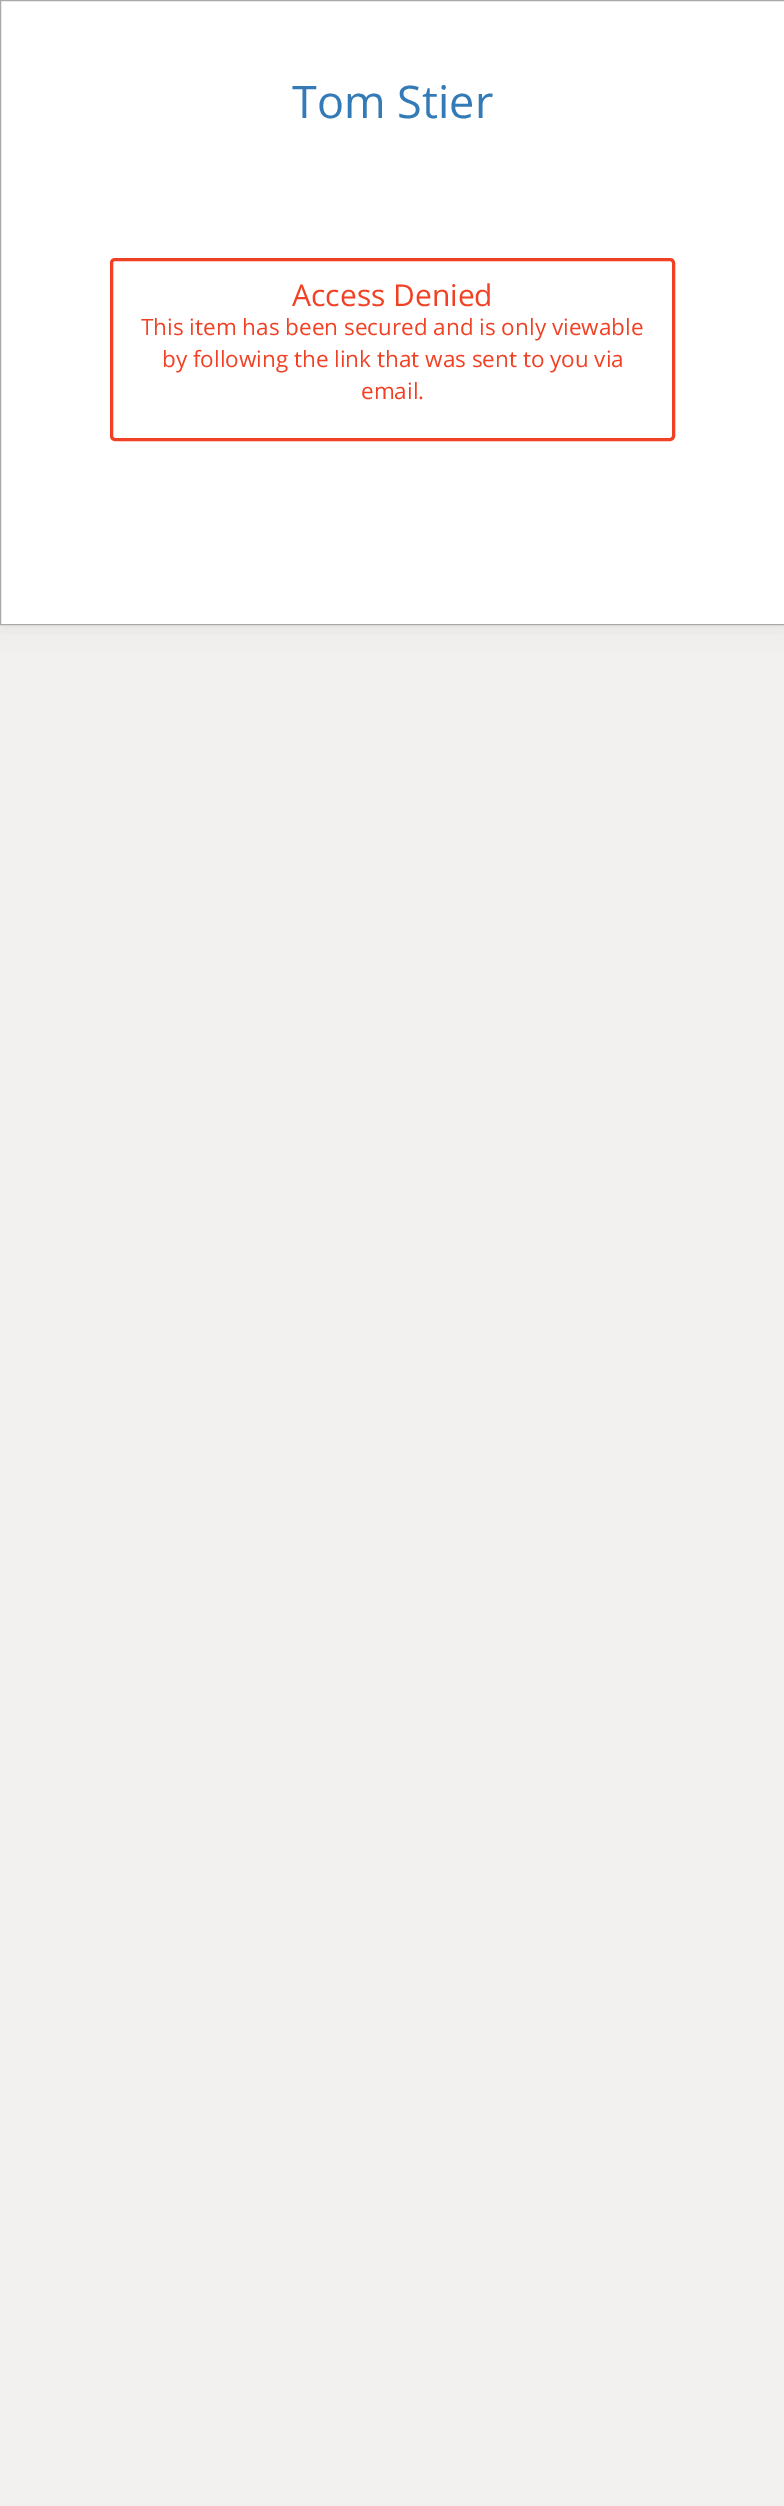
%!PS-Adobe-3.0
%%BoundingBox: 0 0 784 2506
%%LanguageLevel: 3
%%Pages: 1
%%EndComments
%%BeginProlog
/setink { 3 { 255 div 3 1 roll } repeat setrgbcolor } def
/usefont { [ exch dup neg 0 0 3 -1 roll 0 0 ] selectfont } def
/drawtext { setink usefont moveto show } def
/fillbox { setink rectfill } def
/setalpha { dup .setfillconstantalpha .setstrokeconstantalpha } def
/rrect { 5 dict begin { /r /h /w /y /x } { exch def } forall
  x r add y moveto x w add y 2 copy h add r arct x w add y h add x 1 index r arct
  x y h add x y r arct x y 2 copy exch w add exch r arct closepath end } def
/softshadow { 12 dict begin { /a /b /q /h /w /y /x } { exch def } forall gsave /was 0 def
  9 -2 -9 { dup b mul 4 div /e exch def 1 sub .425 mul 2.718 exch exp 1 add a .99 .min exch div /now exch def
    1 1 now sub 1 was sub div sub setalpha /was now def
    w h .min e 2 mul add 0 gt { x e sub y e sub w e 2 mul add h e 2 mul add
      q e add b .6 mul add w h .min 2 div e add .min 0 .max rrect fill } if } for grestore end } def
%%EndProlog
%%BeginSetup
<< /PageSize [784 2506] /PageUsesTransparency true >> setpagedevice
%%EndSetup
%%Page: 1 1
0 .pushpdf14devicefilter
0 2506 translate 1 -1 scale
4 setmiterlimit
0 0 784 2506 242 241 239 fillbox
0 0 0 setink
0 0 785 625 0 12.5 0.07 softshadow
255 255 255 setink
0.5 0.5 moveto 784.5 0.5 lineto 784.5 624.5 lineto 0.5 624.5 lineto closepath gsave fill grestore
170 170 170 setink
stroke
(Tom Stier) 292 118 /OpenSans-Regular 45 51 122 183 drawtext
240 65 36 setink
3 setlinewidth
111.5 259.5 562 180 3.5 rrect stroke
(Access Denied) 292 306 /OpenSans-Regular 30 240 65 36 drawtext
(This item has been secured and is only viewable) 141 335 /OpenSans-Regular 22.5 240 65 36 drawtext
(by following the link that was sent to you via) 162 367 /OpenSans-Regular 22.5 240 65 36 drawtext
(email.) 361 399 /OpenSans-Regular 22.5 240 65 36 drawtext
.poppdf14devicefilter showpage
%%EOF
